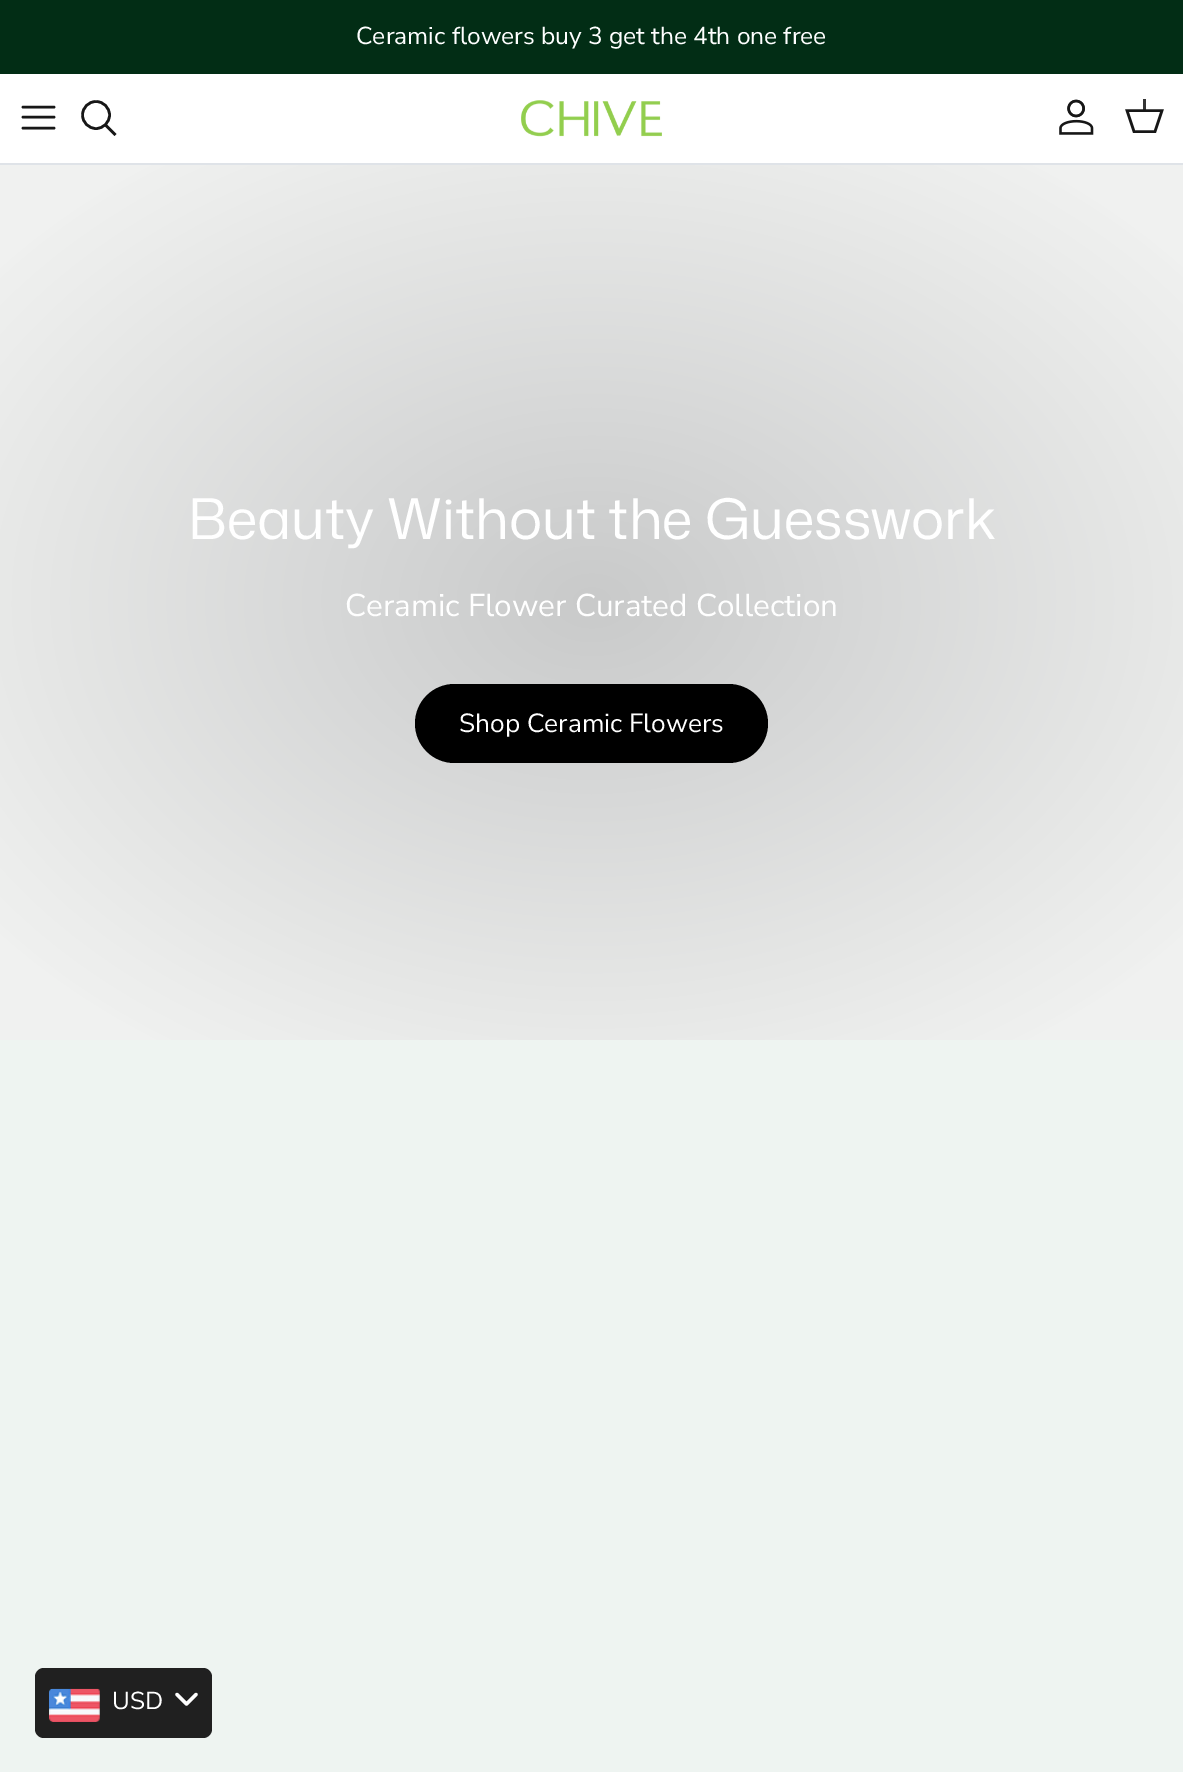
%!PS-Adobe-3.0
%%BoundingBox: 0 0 1183 1772
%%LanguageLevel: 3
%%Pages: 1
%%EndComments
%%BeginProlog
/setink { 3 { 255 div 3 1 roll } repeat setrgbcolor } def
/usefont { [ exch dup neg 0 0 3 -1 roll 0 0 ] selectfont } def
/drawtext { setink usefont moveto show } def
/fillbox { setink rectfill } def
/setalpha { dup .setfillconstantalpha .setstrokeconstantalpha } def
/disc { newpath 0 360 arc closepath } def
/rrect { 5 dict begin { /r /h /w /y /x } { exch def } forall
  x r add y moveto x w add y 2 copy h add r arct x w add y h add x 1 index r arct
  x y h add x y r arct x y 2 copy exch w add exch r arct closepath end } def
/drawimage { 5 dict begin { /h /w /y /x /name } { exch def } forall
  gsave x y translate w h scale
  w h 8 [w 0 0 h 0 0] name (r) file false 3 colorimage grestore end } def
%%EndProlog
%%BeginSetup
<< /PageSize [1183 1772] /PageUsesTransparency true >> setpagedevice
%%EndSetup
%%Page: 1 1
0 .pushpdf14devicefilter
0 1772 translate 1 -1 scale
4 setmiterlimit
0 0 1183 1772 238 244 241 fillbox
0 0 1183 74 2 45 21 fillbox
(Ceramic flowers buy 3 get the 4th one free) 356 44 /NunitoSans-Regular 24.5 255 255 255 drawtext
0 74 1183 89 255 255 255 fillbox
0 163 1183 2 223 227 232 fillbox
23 23 23 setink
2.6 setlinewidth
1 setlinecap
1 setlinejoin
23 117 moveto 54 117 lineto 23 107 moveto 54 107 lineto 23 128 moveto 54 128 lineto stroke
0 setlinecap
0 setlinejoin
96 115 13.5 disc stroke
2 setlinecap
106.5 126 moveto 114.5 134 lineto stroke
(assets/img1.rgb) 521 100 141 37 drawimage
(assets/img2.rgb) 1059 99 35 36 drawimage
0 setlinecap
1127 110.5 moveto 1162 110.5 lineto 1155 131.5 lineto 1134 131.5 lineto closepath stroke
0.87 setalpha
1143 99 3 12 23 23 23 fillbox
1 setalpha
gsave 0 165 moveto 1183 165 lineto 1183 1040 lineto 0 1040 lineto closepath clip newpath 592 601 translate 1084 773 scale
<< /ShadingType 3 /ColorSpace /DeviceRGB /Coords [0 0 0 0 0 1] /Extend [true true] /Function << /FunctionType 3 /Domain [0 1] /Functions [<< /FunctionType 2 /Domain [0 1] /C0 [0.788 0.792 0.792] /C1 [0.941 0.945 0.941] /N 1 >> << /FunctionType 2 /Domain [0 1] /C0 [0.941 0.945 0.941] /C1 [0.941 0.945 0.941] /N 1 >>] /Bounds [0.7] /Encode [0 1 0 1] >> >> shfill grestore
(Beauty Without the Guesswork) 188 539 /MonaSans-Regular 56 255 255 255 drawtext
(Ceramic Flower Curated Collection) 345 616 /NunitoSans-Regular 31.5 255 255 255 drawtext
0 0 0 setink
415 684 353 79 39.5 rrect fill
(Shop Ceramic Flowers) 459 732 /NunitoSans-Regular 26.25 255 255 255 drawtext
32 32 32 setink
35 1668 177 70 9 rrect fill
(assets/img3.rgb) 49 1688 51 34 drawimage
(USD) 112 1709 /NunitoSans-Regular 24.5 255 255 255 drawtext
3.2 setlinewidth
1 setlinecap
1 setlinejoin
177 1694.5 moveto 186.5 1704 lineto 196 1694.5 lineto stroke
.poppdf14devicefilter showpage
%%EOF
